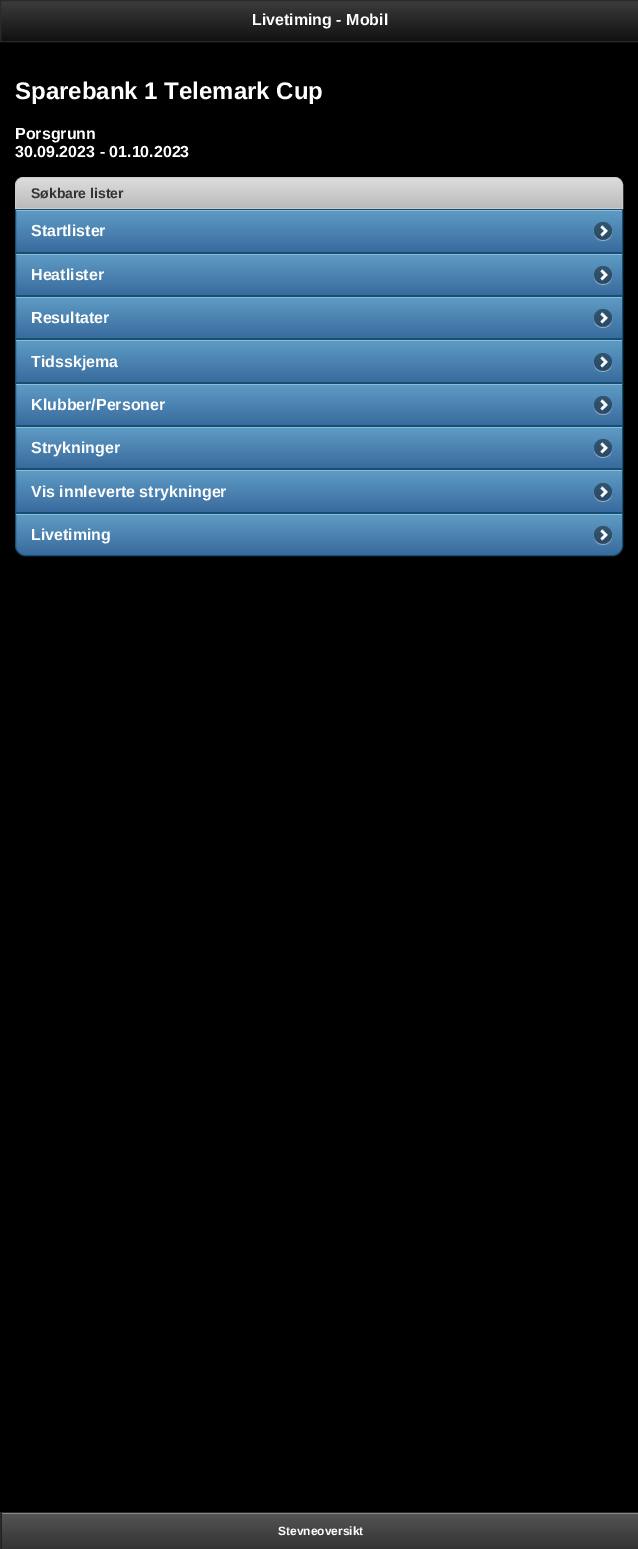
%!PS-Adobe-3.0
%%BoundingBox: 0 0 638 1549
%%LanguageLevel: 3
%%Pages: 1
%%EndComments
%%BeginProlog
/setink { 3 { 255 div 3 1 roll } repeat setrgbcolor } def
/usefont { [ exch dup neg 0 0 3 -1 roll 0 0 ] selectfont } def
/drawtext { setink usefont moveto show } def
/fillbox { setink rectfill } def
/setalpha { dup .setfillconstantalpha .setstrokeconstantalpha } def
/disc { newpath 0 360 arc closepath } def
/drawimage { 5 dict begin { /h /w /y /x /name } { exch def } forall
  gsave x y translate w h scale
  w h 8 [w 0 0 h 0 0] name (r) file false 3 colorimage grestore end } def
%%EndProlog
%%BeginSetup
<< /PageSize [638 1549] /PageUsesTransparency true >> setpagedevice
%%EndSetup
%%Page: 1 1
0 .pushpdf14devicefilter
0 1549 translate 1 -1 scale
4 setmiterlimit
0 0 638 1549 0 0 0 fillbox
gsave 1 1 moveto 638 1 lineto 638 41 lineto 1 41 lineto closepath clip newpath
<< /ShadingType 2 /ColorSpace /DeviceRGB /Coords [320 1 320 41] /Extend [true true] /Function << /FunctionType 2 /Domain [0 1] /C0 [0.235 0.235 0.235] /C1 [0.067 0.067 0.067] /N 1 >> >> shfill grestore
42 42 42 setink
0.5 0.5 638 41 rectstroke
(Livetiming - Mobil) 252 25 /LiberationSans-Bold 16 255 255 255 drawtext
(Sparebank 1 Telemark Cup) 15 99 /LiberationSans-Bold 24 255 255 255 drawtext
(Porsgrunn) 15 139 /LiberationSans-Bold 16 255 255 255 drawtext
(30.09.2023 - 01.10.2023) 15 157 /LiberationSans-Bold 16 255 255 255 drawtext
gsave 23 178 moveto 615 178 lineto 619 178 622 181 622 185 curveto 622 208 lineto 16 208 lineto 16 185 lineto 16 181 19 178 23 178 curveto closepath clip newpath
<< /ShadingType 2 /ColorSpace /DeviceRGB /Coords [319 178 319 208] /Extend [true true] /Function << /FunctionType 2 /Domain [0 1] /C0 [0.867 0.867 0.867] /C1 [0.733 0.733 0.733] /N 1 >> >> shfill grestore
204 204 204 setink
23 177.5 moveto 615 177.5 lineto 619 177.5 622.5 181 622.5 185 curveto 622.5 208.5 lineto 15.5 208.5 lineto 15.5 185 lineto 15.5 181 19 177.5 23 177.5 curveto closepath stroke
(Søkbare lister) 31 198 /LiberationSans-Bold 14 51 51 51 drawtext
gsave 16 211 moveto 622 211 lineto 622 252 lineto 16 252 lineto closepath clip newpath
<< /ShadingType 2 /ColorSpace /DeviceRGB /Coords [319 210 319 252] /Extend [true true] /Function << /FunctionType 2 /Domain [0 1] /C0 [0.373 0.612 0.773] /C1 [0.224 0.42 0.62] /N 1 >> >> shfill grestore
20 80 114 setink
15.5 209.5 607 43 rectstroke
16 210 606 1 143 185 214 fillbox
(Startlister) 31 236 /LiberationSans-Bold 16 255 255 255 drawtext
0.4 setalpha
612 231.5 moveto 611.5 242.5 594.5 242.5 594 231.5 curveto 593.5 244 612.5 244 612 231.5 curveto closepath fill
0 0 0 setink
603 231 9 disc fill
1 setalpha
(assets/img1.rgb) 600 225 8 12 drawimage
gsave 16 255 moveto 622 255 lineto 622 295 lineto 16 295 lineto closepath clip newpath
<< /ShadingType 2 /ColorSpace /DeviceRGB /Coords [319 254 319 295] /Extend [true true] /Function << /FunctionType 2 /Domain [0 1] /C0 [0.373 0.612 0.773] /C1 [0.224 0.42 0.62] /N 1 >> >> shfill grestore
20 80 114 setink
15.5 253.5 607 42 rectstroke
16 254 606 1 143 185 214 fillbox
(Heatlister) 31 280 /LiberationSans-Bold 16 255 255 255 drawtext
0.4 setalpha
612 275.5 moveto 611.5 286.5 594.5 286.5 594 275.5 curveto 593.5 288 612.5 288 612 275.5 curveto closepath fill
0 0 0 setink
603 275 9 disc fill
1 setalpha
(assets/img2.rgb) 600 269 8 12 drawimage
gsave 16 298 moveto 622 298 lineto 622 338 lineto 16 338 lineto closepath clip newpath
<< /ShadingType 2 /ColorSpace /DeviceRGB /Coords [319 297 319 338] /Extend [true true] /Function << /FunctionType 2 /Domain [0 1] /C0 [0.373 0.612 0.773] /C1 [0.224 0.42 0.62] /N 1 >> >> shfill grestore
20 80 114 setink
15.5 296.5 607 42 rectstroke
16 297 606 1 143 185 214 fillbox
(Resultater) 31 323 /LiberationSans-Bold 16 255 255 255 drawtext
0.4 setalpha
612 318.5 moveto 611.5 329.5 594.5 329.5 594 318.5 curveto 593.5 331 612.5 331 612 318.5 curveto closepath fill
0 0 0 setink
603 318 9 disc fill
1 setalpha
(assets/img2.rgb) 600 312 8 12 drawimage
gsave 16 341 moveto 622 341 lineto 622 382 lineto 16 382 lineto closepath clip newpath
<< /ShadingType 2 /ColorSpace /DeviceRGB /Coords [319 340 319 382] /Extend [true true] /Function << /FunctionType 2 /Domain [0 1] /C0 [0.373 0.612 0.773] /C1 [0.224 0.42 0.62] /N 1 >> >> shfill grestore
20 80 114 setink
15.5 339.5 607 43 rectstroke
16 340 606 1 143 185 214 fillbox
(Tidsskjema) 31 367 /LiberationSans-Bold 16 255 255 255 drawtext
0.4 setalpha
612 362.5 moveto 611.5 373.5 594.5 373.5 594 362.5 curveto 593.5 375 612.5 375 612 362.5 curveto closepath fill
0 0 0 setink
603 362 9 disc fill
1 setalpha
(assets/img3.rgb) 600 356 8 12 drawimage
gsave 16 385 moveto 622 385 lineto 622 425 lineto 16 425 lineto closepath clip newpath
<< /ShadingType 2 /ColorSpace /DeviceRGB /Coords [319 384 319 425] /Extend [true true] /Function << /FunctionType 2 /Domain [0 1] /C0 [0.373 0.612 0.773] /C1 [0.224 0.42 0.62] /N 1 >> >> shfill grestore
20 80 114 setink
15.5 383.5 607 42 rectstroke
16 384 606 1 143 185 214 fillbox
(Klubber/Personer) 31 410 /LiberationSans-Bold 16 255 255 255 drawtext
0.4 setalpha
612 405.5 moveto 611.5 416.5 594.5 416.5 594 405.5 curveto 593.5 418 612.5 418 612 405.5 curveto closepath fill
0 0 0 setink
603 405 9 disc fill
1 setalpha
(assets/img2.rgb) 600 399 8 12 drawimage
gsave 16 428 moveto 622 428 lineto 622 468 lineto 16 468 lineto closepath clip newpath
<< /ShadingType 2 /ColorSpace /DeviceRGB /Coords [319 427 319 468] /Extend [true true] /Function << /FunctionType 2 /Domain [0 1] /C0 [0.373 0.612 0.773] /C1 [0.224 0.42 0.62] /N 1 >> >> shfill grestore
20 80 114 setink
15.5 426.5 607 42 rectstroke
16 427 606 1 143 185 214 fillbox
(Strykninger) 31 453 /LiberationSans-Bold 16 255 255 255 drawtext
0.4 setalpha
612 448.5 moveto 611.5 459.5 594.5 459.5 594 448.5 curveto 593.5 461 612.5 461 612 448.5 curveto closepath fill
0 0 0 setink
603 448 9 disc fill
1 setalpha
(assets/img2.rgb) 600 442 8 12 drawimage
gsave 16 471 moveto 622 471 lineto 622 512 lineto 16 512 lineto closepath clip newpath
<< /ShadingType 2 /ColorSpace /DeviceRGB /Coords [319 470 319 512] /Extend [true true] /Function << /FunctionType 2 /Domain [0 1] /C0 [0.373 0.612 0.773] /C1 [0.224 0.42 0.62] /N 1 >> >> shfill grestore
20 80 114 setink
15.5 469.5 607 43 rectstroke
16 470 606 1 143 185 214 fillbox
(Vis innleverte strykninger) 31 497 /LiberationSans-Bold 16 255 255 255 drawtext
0.4 setalpha
612 492.5 moveto 611.5 503.5 594.5 503.5 594 492.5 curveto 593.5 505 612.5 505 612 492.5 curveto closepath fill
0 0 0 setink
603 492 9 disc fill
1 setalpha
(assets/img3.rgb) 600 486 8 12 drawimage
gsave 16 514 moveto 622 514 lineto 622 546 lineto 622 551 618 555 613 555 curveto 25 555 lineto 20 555 16 551 16 546 curveto closepath clip newpath
<< /ShadingType 2 /ColorSpace /DeviceRGB /Coords [319 514 319 555] /Extend [true true] /Function << /FunctionType 2 /Domain [0 1] /C0 [0.373 0.612 0.773] /C1 [0.224 0.42 0.62] /N 1 >> >> shfill grestore
20 80 114 setink
15.5 513.5 moveto 622.5 513.5 lineto 622.5 546 lineto 622.5 551 618 555.5 613 555.5 curveto 25 555.5 lineto 20 555.5 15.5 551 15.5 546 curveto closepath stroke
16 514 606 1 143 185 214 fillbox
(Livetiming) 31 540 /LiberationSans-Bold 16 255 255 255 drawtext
0.4 setalpha
594 535.5 moveto 593.5 548 612.5 548 612 535.5 curveto 611.5 546.5 594.5 546.5 594 535.5 curveto closepath fill
0 0 0 setink
603 535 9 disc fill
1 setalpha
(assets/img2.rgb) 600 529 8 12 drawimage
42 42 42 setink
0.5 1512.5 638 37 rectstroke
gsave 2 1514 moveto 638 1514 lineto 638 1549 lineto 2 1549 lineto closepath clip newpath
<< /ShadingType 2 /ColorSpace /DeviceRGB /Coords [321 1513 321 1549] /Extend [true true] /Function << /FunctionType 2 /Domain [0 1] /C0 [0.333 0.333 0.333] /C1 [0.2 0.2 0.2] /N 1 >> >> shfill grestore
1 1513 1 36 34 34 34 fillbox
2 1513 636 1 136 136 136 fillbox
(Stevneoversikt) 278 1535 /LiberationSans-Bold 12 255 255 255 drawtext
.poppdf14devicefilter showpage
%%EOF
